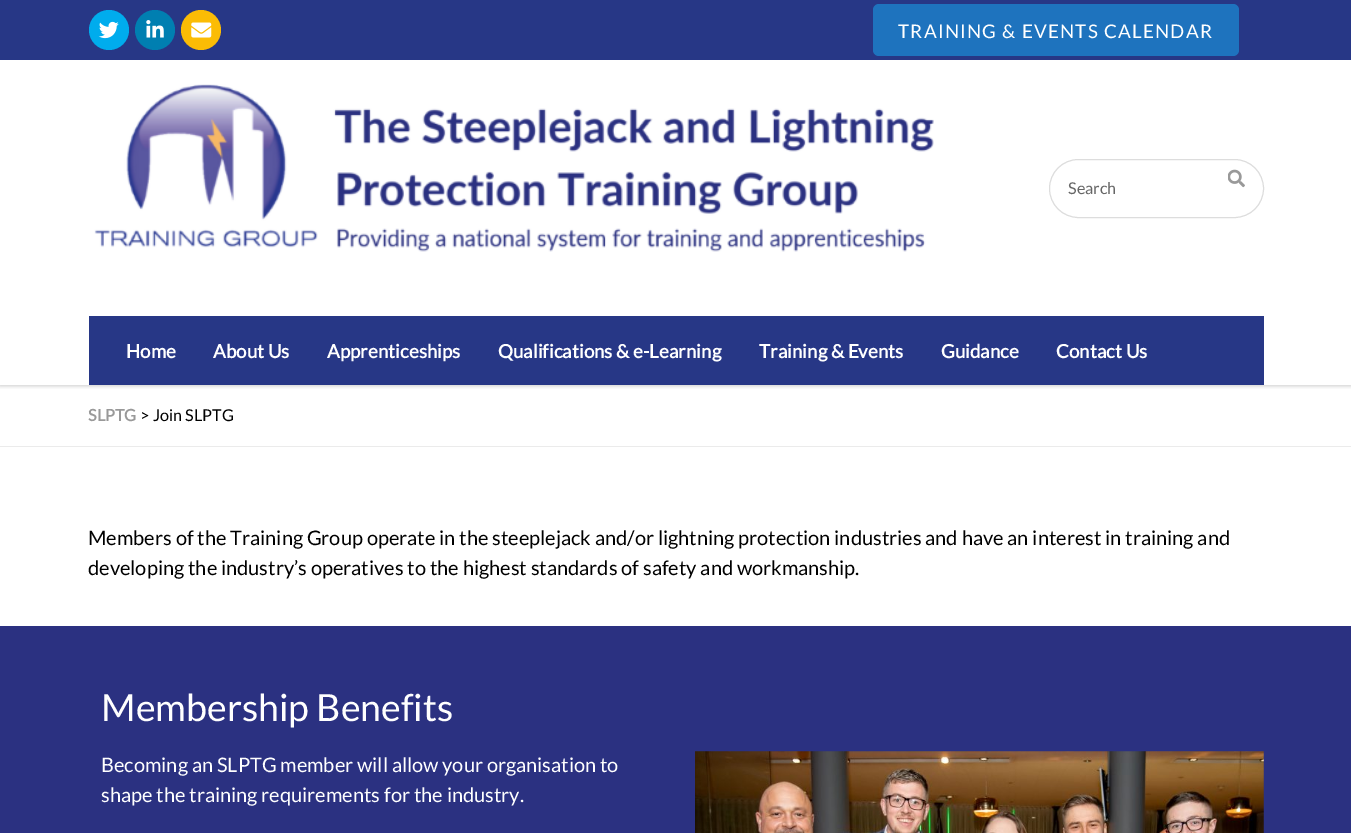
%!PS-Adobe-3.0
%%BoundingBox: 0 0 1351 833
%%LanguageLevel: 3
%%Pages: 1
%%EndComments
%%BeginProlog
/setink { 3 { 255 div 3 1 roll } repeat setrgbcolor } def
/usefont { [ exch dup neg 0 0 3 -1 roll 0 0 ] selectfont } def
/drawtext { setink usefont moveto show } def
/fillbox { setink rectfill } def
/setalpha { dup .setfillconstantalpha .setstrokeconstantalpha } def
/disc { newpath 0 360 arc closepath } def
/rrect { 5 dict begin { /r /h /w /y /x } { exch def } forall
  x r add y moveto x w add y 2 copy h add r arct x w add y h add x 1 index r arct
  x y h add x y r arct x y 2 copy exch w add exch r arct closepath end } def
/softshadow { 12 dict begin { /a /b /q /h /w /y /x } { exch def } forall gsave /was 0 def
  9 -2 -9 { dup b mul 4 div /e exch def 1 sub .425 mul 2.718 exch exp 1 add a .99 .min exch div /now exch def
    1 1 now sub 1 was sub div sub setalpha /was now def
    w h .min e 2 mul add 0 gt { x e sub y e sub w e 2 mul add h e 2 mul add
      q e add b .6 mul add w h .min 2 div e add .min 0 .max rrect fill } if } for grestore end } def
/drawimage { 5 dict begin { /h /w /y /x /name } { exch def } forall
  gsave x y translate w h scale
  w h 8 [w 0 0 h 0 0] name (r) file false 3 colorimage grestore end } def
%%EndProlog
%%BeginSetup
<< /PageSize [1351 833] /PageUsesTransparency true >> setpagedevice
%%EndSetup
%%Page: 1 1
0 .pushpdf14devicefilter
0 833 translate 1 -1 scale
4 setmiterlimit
0 0 1351 833 255 255 255 fillbox
gsave
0 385 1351 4 rectclip
0 0 0 setink
0 61 1351 325 0 2 0.2 softshadow
grestore
0 0 1351 60 39 55 134 fillbox
0 172 237 setink
109 30 20 disc fill
(assets/img1.rgb) 98 21 21 18 drawimage
0 127 177 setink
155 30 20 disc fill
(assets/img2.rgb) 146 20 18 18 drawimage
251 188 5 setink
201 30 20 disc fill
(assets/img3.rgb) 191 22 21 16 drawimage
30 115 190 setink
873 4 366 52 6 rrect fill
/Lato-Regular 18.75 usefont
255 255 255 setink
898 38 moveto 1.25 0 (TRAINING & EVENTS CALENDAR) ashow
(assets/img4.rgb) 94 84 840 168 drawimage
221 221 221 setink
1049.5 159.5 214 58 29 rrect stroke
(Search) 1068 194 /Lato-Regular 16.25 102 102 102 drawtext
(assets/img5.rgb) 1228 169 17 19 drawimage
89 316 1175 69 39 55 134 fillbox
(Home) 126 358 /Lato-Bold 18.75 255 255 255 drawtext
(About Us) 213 358 /Lato-Bold 18.75 255 255 255 drawtext
(Apprenticeships) 327 358 /Lato-Bold 18.75 255 255 255 drawtext
(Qualifications & e-Learning) 498 358 /Lato-Bold 18.75 255 255 255 drawtext
(Training & Events) 759 358 /Lato-Bold 18.75 255 255 255 drawtext
(Guidance) 941 358 /Lato-Bold 18.75 255 255 255 drawtext
(Contact Us) 1056 358 /Lato-Bold 18.75 255 255 255 drawtext
0 446 1351 1 235 235 235 fillbox
(SLPTG) 88 421 /Lato-Bold 16.25 153 153 153 drawtext
(> Join SLPTG) 140 421 /Lato-Regular 16.25 0 0 0 drawtext
(Members of the Training Group operate in the steeplejack and/or lightning protection industries and have an interest in training and) 88 545 /Lato-Regular 20 0 0 0 drawtext
(developing the industry’s operatives to the highest standards of safety and workmanship.) 88 575 /Lato-Regular 20 0 0 0 drawtext
0 626 1351 207 43 49 129 fillbox
(Membership Benefits) 101 721 /Lato-Regular 37.5 255 255 255 drawtext
(Becoming an SLPTG member will allow your organisation to) 101 772 /Lato-Regular 20 255 255 255 drawtext
(shape the training requirements for the industry.) 101 802 /Lato-Regular 20 255 255 255 drawtext
(assets/img6.rgb) 695 751 569 82 drawimage
.poppdf14devicefilter showpage
%%EOF
